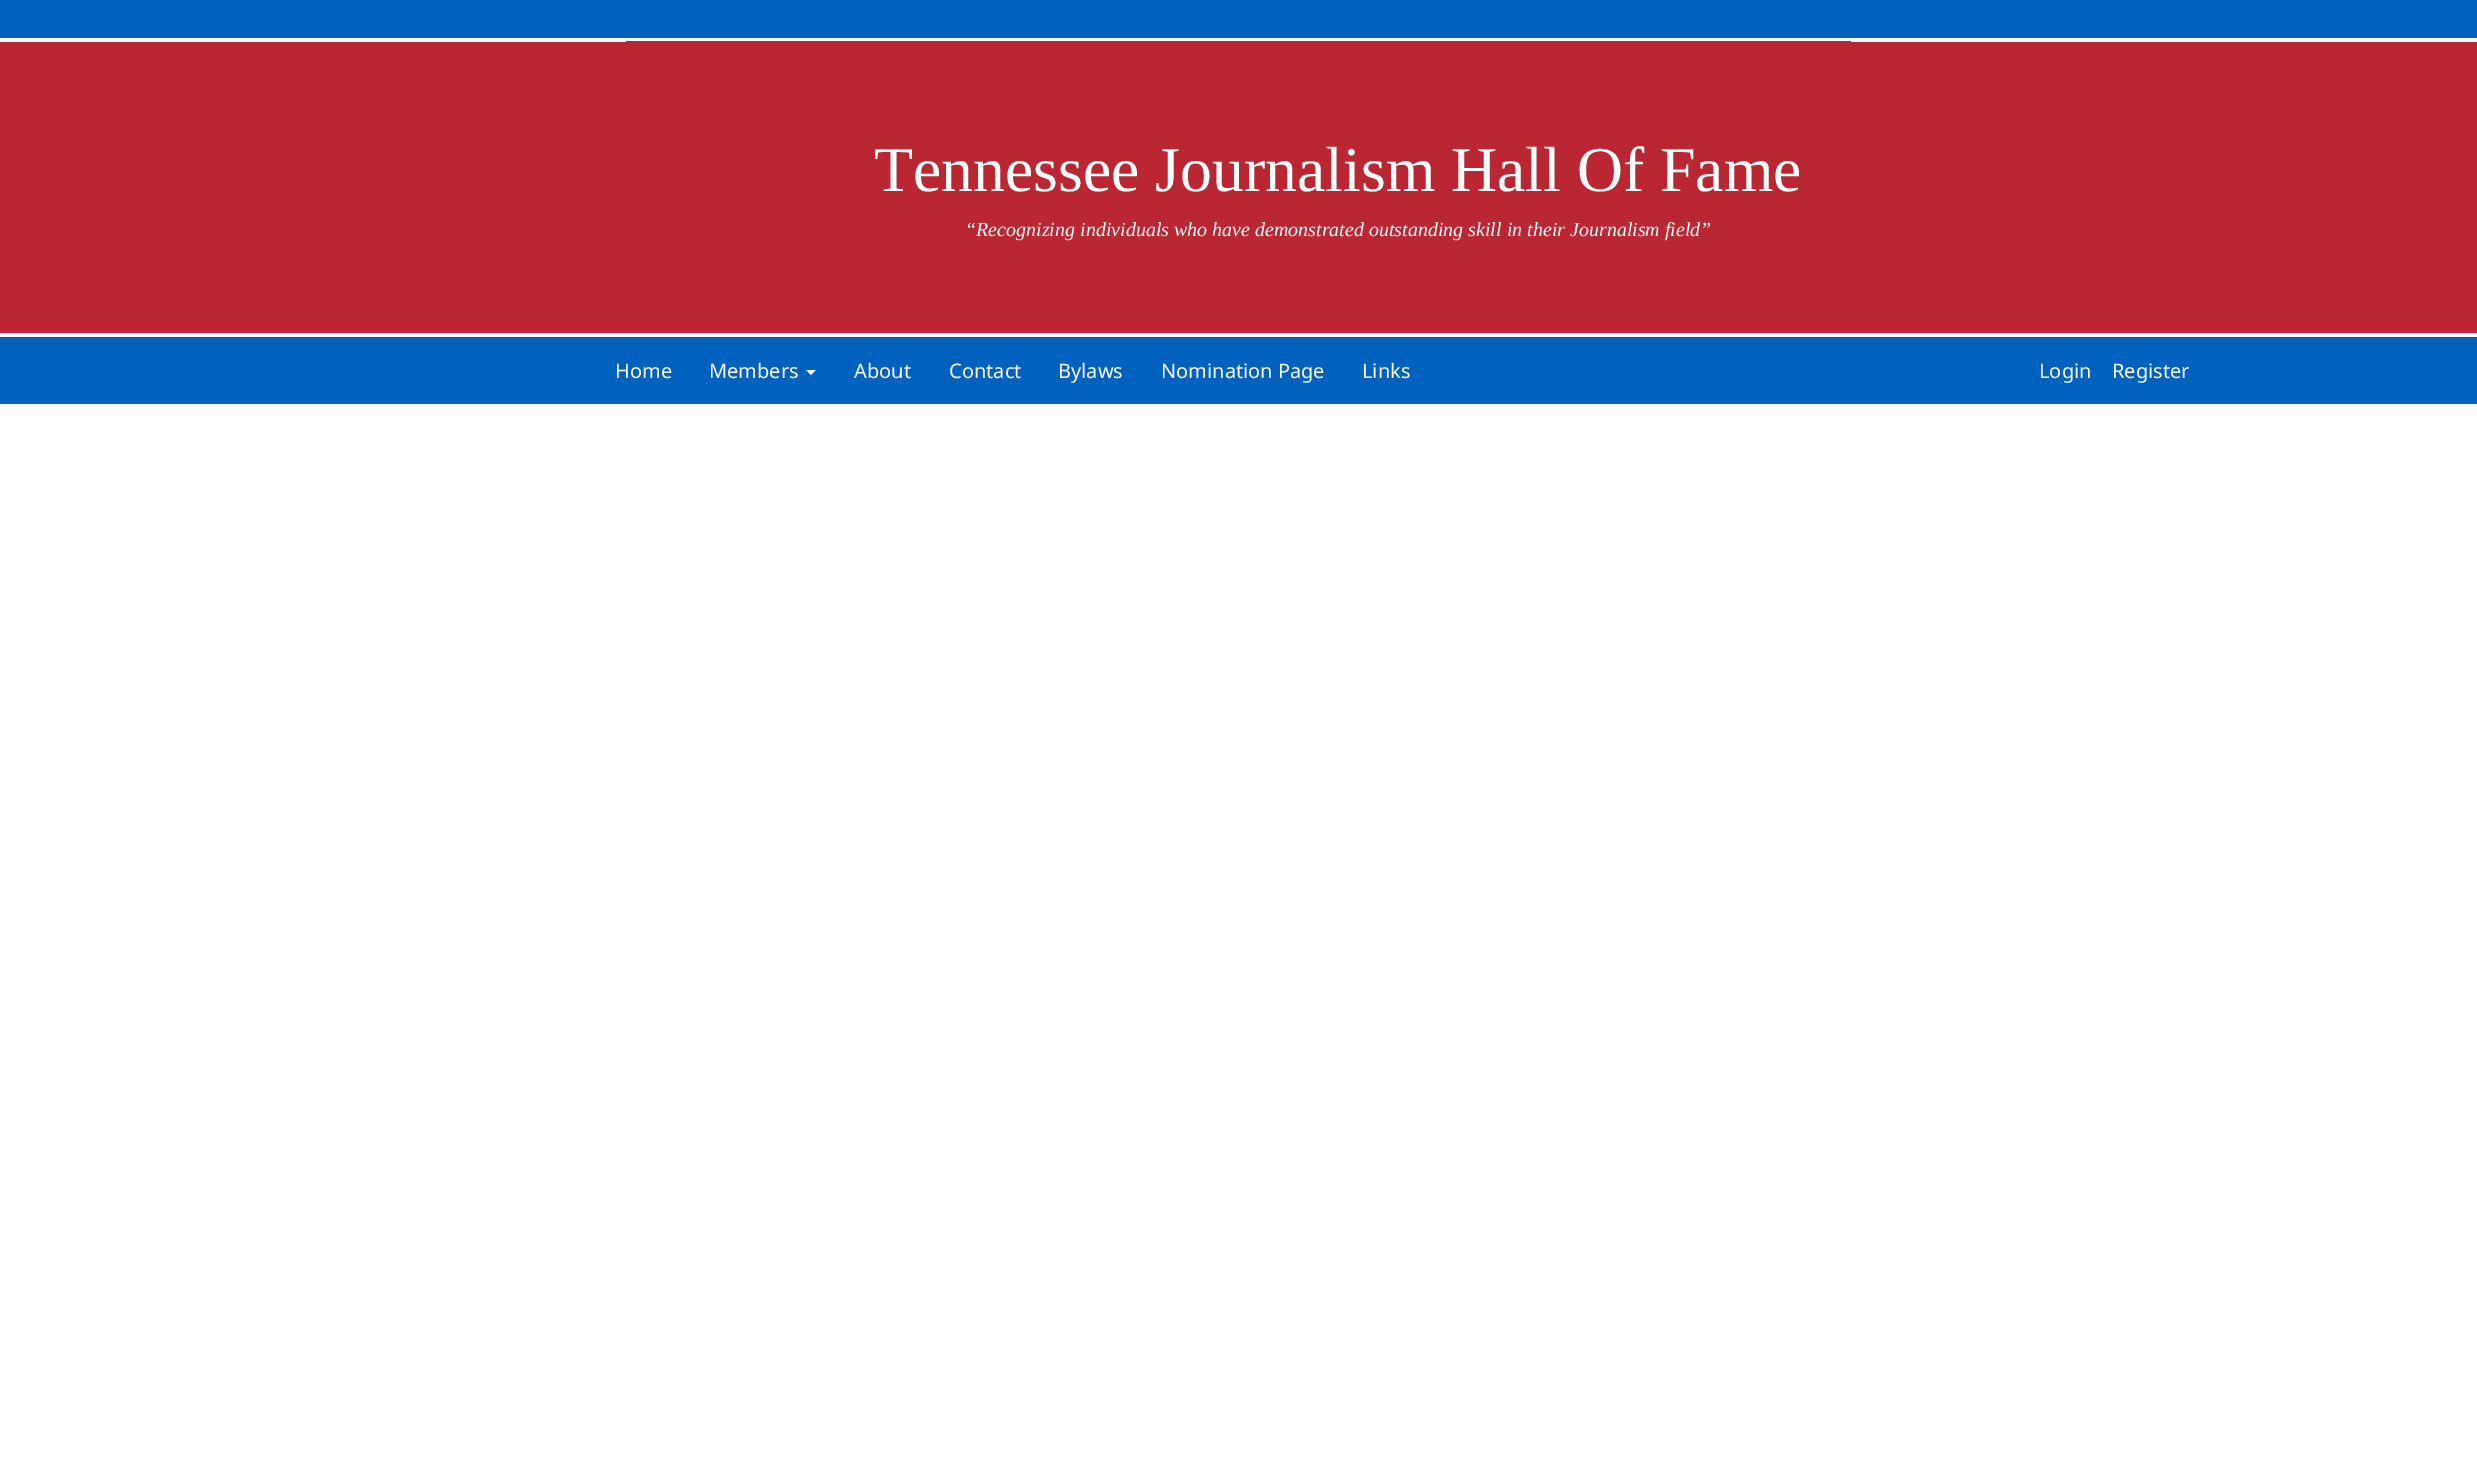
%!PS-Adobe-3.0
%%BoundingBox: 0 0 2477 1473
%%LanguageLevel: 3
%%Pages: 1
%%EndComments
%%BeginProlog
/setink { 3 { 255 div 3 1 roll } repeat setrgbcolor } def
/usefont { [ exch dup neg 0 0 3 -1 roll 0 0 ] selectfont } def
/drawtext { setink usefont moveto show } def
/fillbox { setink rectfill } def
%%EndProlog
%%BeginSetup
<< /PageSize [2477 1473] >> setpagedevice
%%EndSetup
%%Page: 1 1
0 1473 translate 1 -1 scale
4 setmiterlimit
0 0 2477 1473 255 255 255 fillbox
0 42 2477 291 186 39 51 fillbox
0 0 2477 38 0 97 191 fillbox
626 41 1225 1 186 39 51 fillbox
(Tennessee Journalism Hall Of Fame) 874 191 /LiberationSerif-Regular 63.75 255 255 255 drawtext
(“Recognizing individuals who have demonstrated outstanding skill in their Journalism field”) 965 236 /LiberationSerif-Italic 20 255 255 255 drawtext
0 337 2477 67 0 97 191 fillbox
(Home) 615 378 /NotoSans-Regular 20 255 255 255 drawtext
(Members) 709 378 /NotoSans-Regular 20 255 255 255 drawtext
806 370 moveto 816 370 lineto 811 375 lineto closepath fill
(About) 854 378 /NotoSans-Regular 20 255 255 255 drawtext
(Contact) 949 378 /NotoSans-Regular 20 255 255 255 drawtext
(Bylaws) 1058 378 /NotoSans-Regular 20 255 255 255 drawtext
(Nomination Page) 1161 378 /NotoSans-Regular 20 255 255 255 drawtext
(Links) 1362 378 /NotoSans-Regular 20 255 255 255 drawtext
(Login) 2039 378 /NotoSans-Regular 20 255 255 255 drawtext
(Register) 2112 378 /NotoSans-Regular 20 255 255 255 drawtext
showpage
%%EOF
